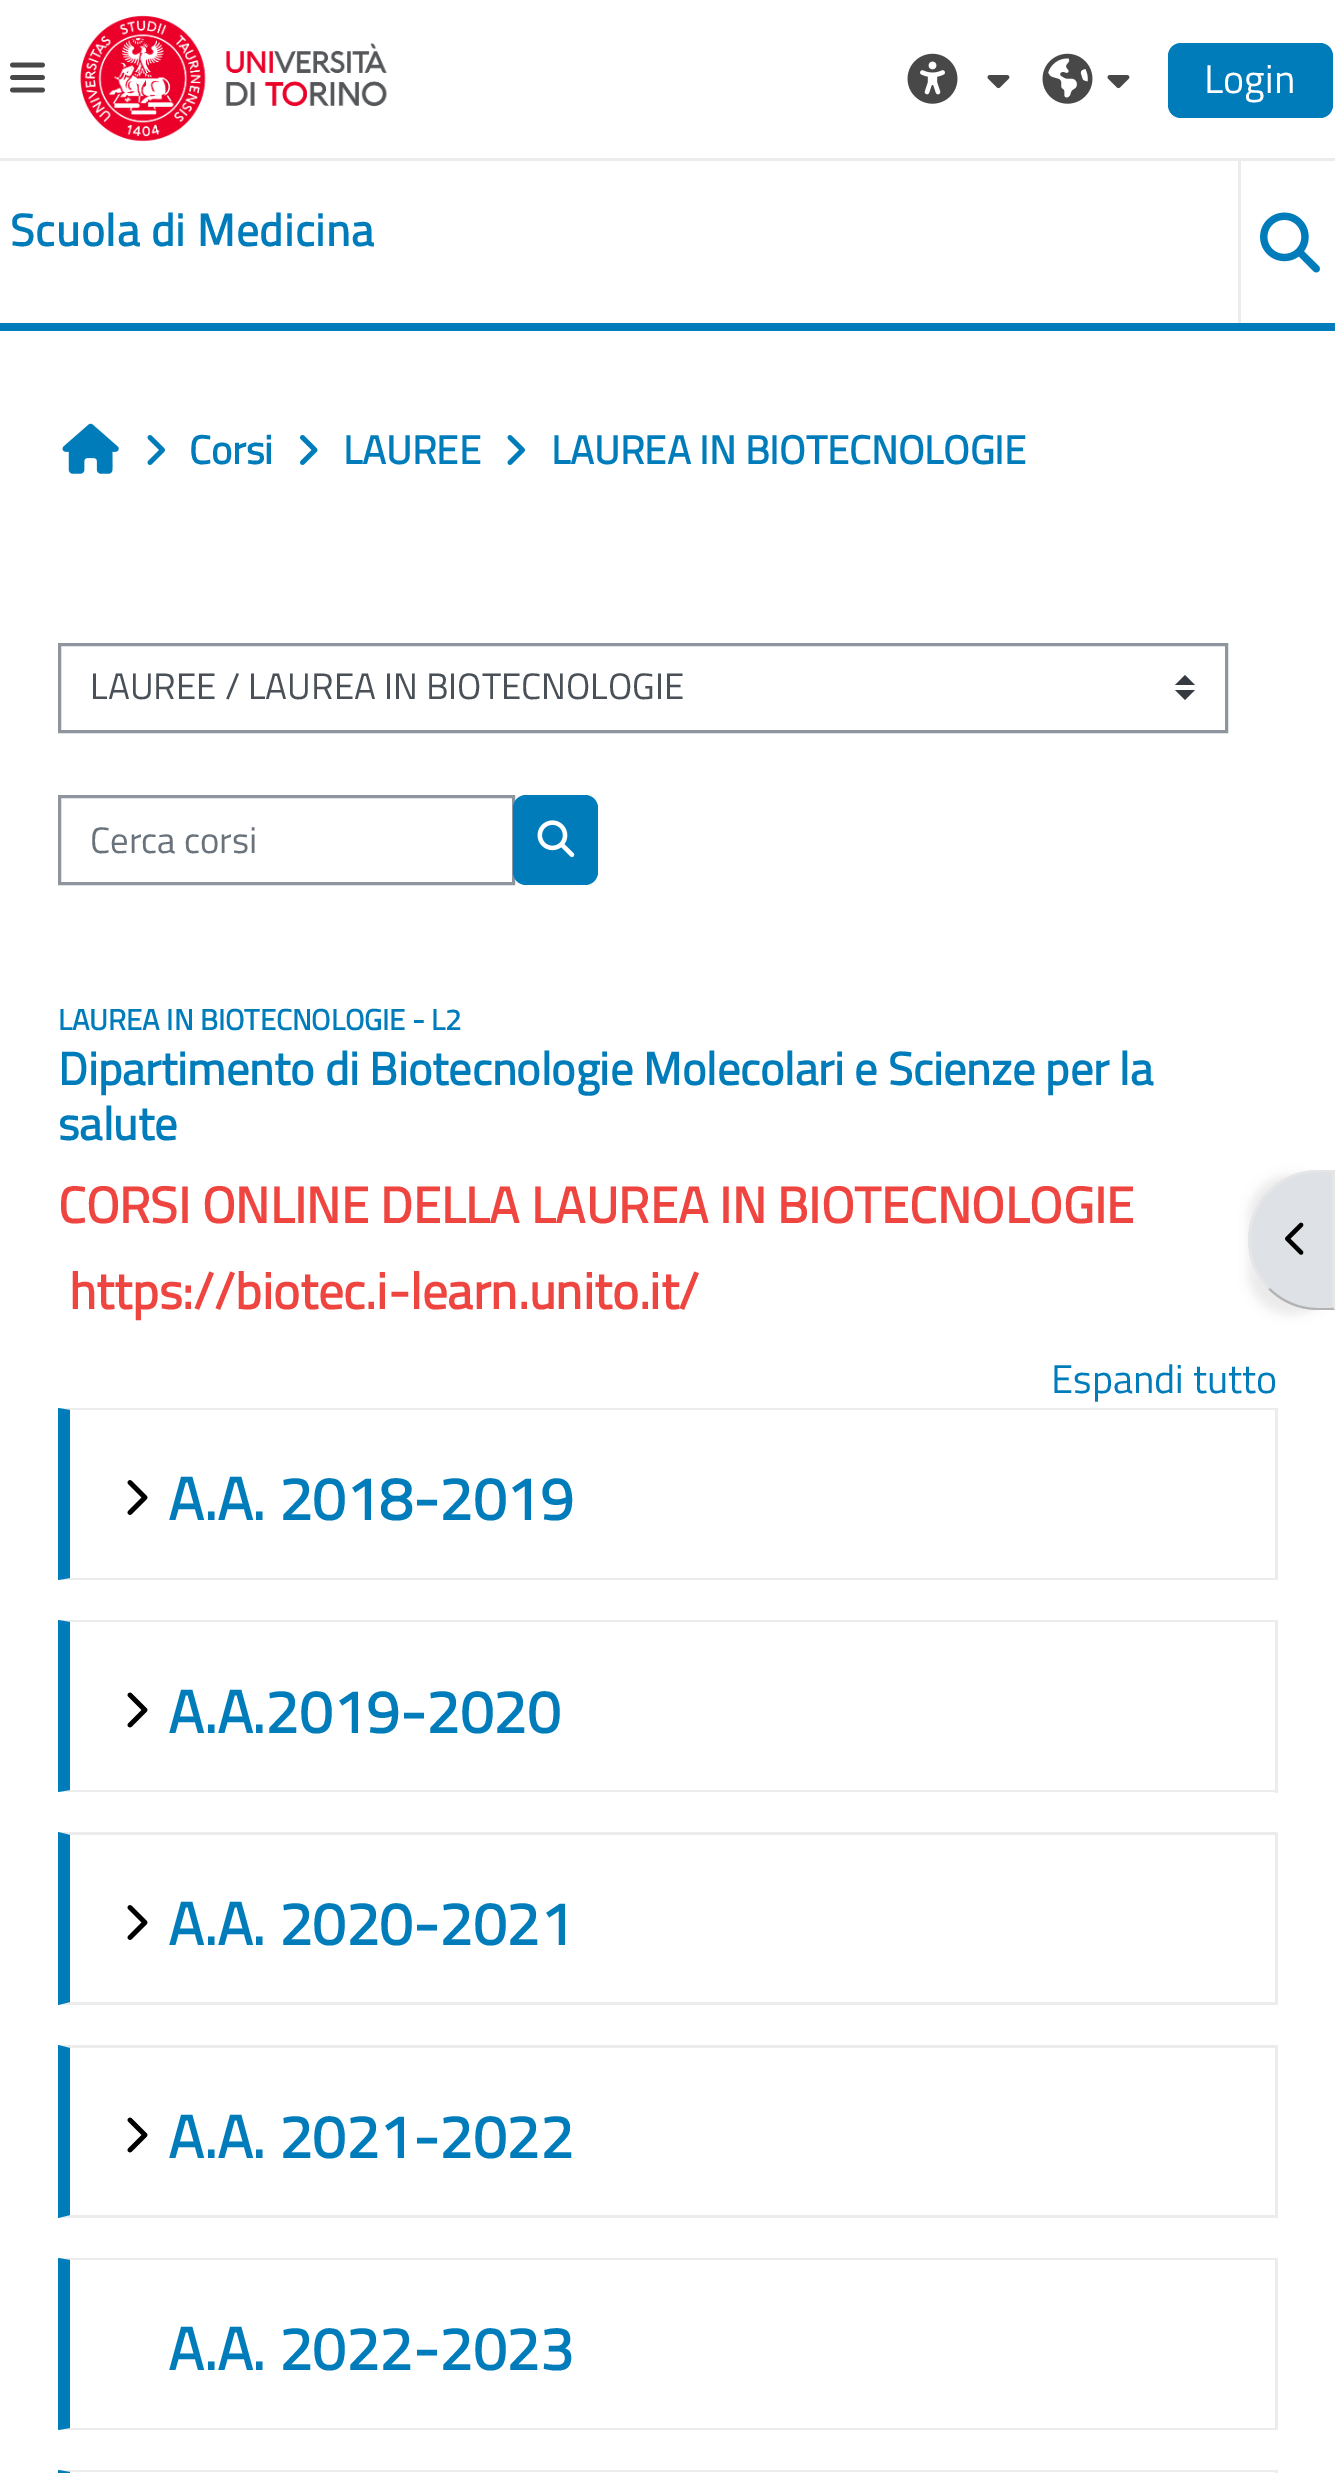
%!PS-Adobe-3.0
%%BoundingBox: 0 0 1335 2473
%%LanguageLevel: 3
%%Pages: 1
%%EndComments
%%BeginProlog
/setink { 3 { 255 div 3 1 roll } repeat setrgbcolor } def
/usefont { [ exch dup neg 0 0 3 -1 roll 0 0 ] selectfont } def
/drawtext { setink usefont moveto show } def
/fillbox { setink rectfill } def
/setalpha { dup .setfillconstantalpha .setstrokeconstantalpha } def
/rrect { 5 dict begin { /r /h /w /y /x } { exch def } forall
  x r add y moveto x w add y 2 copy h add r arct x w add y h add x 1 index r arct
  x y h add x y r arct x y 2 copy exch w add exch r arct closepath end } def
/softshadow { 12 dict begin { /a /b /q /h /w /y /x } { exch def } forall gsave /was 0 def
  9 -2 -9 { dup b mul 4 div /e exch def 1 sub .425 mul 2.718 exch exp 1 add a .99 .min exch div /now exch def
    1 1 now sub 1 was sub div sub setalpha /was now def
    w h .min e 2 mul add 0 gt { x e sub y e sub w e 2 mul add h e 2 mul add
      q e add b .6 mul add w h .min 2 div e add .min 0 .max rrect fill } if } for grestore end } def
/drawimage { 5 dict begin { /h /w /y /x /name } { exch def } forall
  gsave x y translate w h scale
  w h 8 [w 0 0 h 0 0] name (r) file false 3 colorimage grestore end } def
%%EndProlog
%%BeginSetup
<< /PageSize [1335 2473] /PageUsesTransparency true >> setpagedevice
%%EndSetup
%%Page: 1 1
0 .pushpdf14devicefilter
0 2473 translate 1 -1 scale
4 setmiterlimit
0 0 1335 2473 255 255 255 fillbox
0 323 1335 8 0 124 186 fillbox
0 158 1335 3 236 236 236 fillbox
(assets/img1.rgb) 10 62 35 31 drawimage
(assets/img2.rgb) 80 15 307 127 drawimage
(assets/img3.rgb) 907 53 51 51 drawimage
(assets/img4.rgb) 987 75 23 14 drawimage
(assets/img5.rgb) 1042 53 51 51 drawimage
(assets/img4.rgb) 1107 75 23 14 drawimage
0 124 186 setink
1168 43 165 75 13 rrect fill
(Login) 1204 93 /TitilliumWeb-Regular 40 255 255 255 drawtext
/TitilliumWeb-Bold 45 usefont
0 124 186 setink
10 246 moveto 0.9 0 (Scuola di Medicina) ashow
1238 160 3 163 236 236 236 fillbox
(assets/img6.rgb) 1260 212 60 61 drawimage
(assets/img7.rgb) 62 423 57 51 drawimage
(assets/img8.rgb) 147 435 18 30 drawimage
(Corsi) 189 464 /TitilliumWeb-Bold 40 0 124 186 drawtext
(assets/img9.rgb) 300 435 18 30 drawimage
(LAUREE) 343 464 /TitilliumWeb-Bold 40 0 124 186 drawtext
(assets/img8.rgb) 507 435 18 30 drawimage
(LAUREA IN BIOTECNOLOGIE) 551 464 /TitilliumWeb-Bold 40 0 124 186 drawtext
52 58 64 setink
1185 675 moveto 1175 685 lineto 1195 685 lineto closepath 1185 700 moveto 1175 690 lineto 1195 690 lineto closepath fill
143 149 158 setink
3 setlinewidth
59.5 644.5 1167 87 rectstroke
(LAUREE / LAUREA IN BIOTECNOLOGIE) 90 699 /TitilliumWeb-Regular 36.75 73 80 87 drawtext
143 149 158 setink
59.5 796.5 454 87 rectstroke
(Cerca corsi) 90 853 /TitilliumWeb-Regular 36.75 106 115 123 drawtext
0 124 186 setink
513 795 85 90 13 rrect fill
(assets/img10.rgb) 537 820 38 38 drawimage
(LAUREA IN BIOTECNOLOGIE - L2) 58 1030 /TitilliumWeb-Bold 29.25 0 124 186 drawtext
(Dipartimento di Biotecnologie Molecolari e Scienze per la) 58 1085 /TitilliumWeb-Bold 46.1 0 124 186 drawtext
(salute) 58 1140 /TitilliumWeb-Bold 46.1 0 124 186 drawtext
(CORSI ONLINE DELLA LAUREA IN BIOTECNOLOGIE) 58 1223 /TitilliumWeb-Bold 50.8 239 69 64 drawtext
(https://biotec.i-learn.unito.it/) 69 1309 /TitilliumWeb-Bold 50.8 239 69 64 drawtext
(Espandi tutto) 1051 1393 /TitilliumWeb-Regular 40 0 124 186 drawtext
236 236 236 setink
58 1408 moveto 1278 1408 lineto 1275 1410 lineto 70 1410 lineto closepath fill
1275 1408 3 172 236 236 236 fillbox
1278 1580 moveto 58 1580 lineto 70 1578 lineto 1275 1578 lineto closepath fill
0 124 186 setink
58 1580 moveto 58 1408 lineto 70 1410 lineto 70 1578 lineto closepath fill
(assets/img11.rgb) 127 1480 21 35 drawimage
(A.A. 2018-2019) 168 1520 /TitilliumWeb-Bold 60 0 124 186 drawtext
236 236 236 setink
58 1620 moveto 1278 1620 lineto 1275 1622 lineto 70 1622 lineto closepath fill
1275 1620 3 173 236 236 236 fillbox
1278 1792 moveto 58 1792 lineto 70 1790 lineto 1275 1790 lineto closepath fill
0 124 186 setink
58 1792 moveto 58 1620 lineto 70 1622 lineto 70 1790 lineto closepath fill
(assets/img12.rgb) 127 1692 21 36 drawimage
(A.A.2019-2020) 168 1733 /TitilliumWeb-Bold 60 0 124 186 drawtext
236 236 236 setink
58 1832 moveto 1278 1832 lineto 1275 1835 lineto 70 1835 lineto closepath fill
1275 1833 3 172 236 236 236 fillbox
1278 2005 moveto 58 2005 lineto 70 2002 lineto 1275 2002 lineto closepath fill
0 124 186 setink
58 2005 moveto 58 1832 lineto 70 1835 lineto 70 2002 lineto closepath fill
(assets/img11.rgb) 127 1905 21 35 drawimage
(A.A. 2020-2021) 168 1945 /TitilliumWeb-Bold 60 0 124 186 drawtext
236 236 236 setink
58 2045 moveto 1278 2045 lineto 1275 2048 lineto 70 2048 lineto closepath fill
1275 2045 3 173 236 236 236 fillbox
1278 2218 moveto 58 2218 lineto 70 2215 lineto 1275 2215 lineto closepath fill
0 124 186 setink
58 2218 moveto 58 2045 lineto 70 2048 lineto 70 2215 lineto closepath fill
(assets/img12.rgb) 127 2117 21 36 drawimage
(A.A. 2021-2022) 168 2158 /TitilliumWeb-Bold 60 0 124 186 drawtext
236 236 236 setink
58 2258 moveto 1278 2258 lineto 1275 2260 lineto 70 2260 lineto closepath fill
1275 2258 3 172 236 236 236 fillbox
1278 2430 moveto 58 2430 lineto 70 2428 lineto 1275 2428 lineto closepath fill
0 124 186 setink
58 2430 moveto 58 2258 lineto 70 2260 lineto 70 2428 lineto closepath fill
(A.A. 2022-2023) 168 2370 /TitilliumWeb-Bold 60 0 124 186 drawtext
236 236 236 setink
58 2470 moveto 1278 2470 lineto 1275 2472 lineto 70 2472 lineto closepath fill
1275 2470 3 3 236 236 236 fillbox
0 124 186 setink
58 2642 moveto 58 2470 lineto 70 2472 lineto 70 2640 lineto closepath fill
0 0 0 setink
1248 1175 87 140 70 5 0.07 softshadow
222 226 230 setink
1318 1170 moveto 1335 1170 lineto 1335 1310 lineto 1318 1310 lineto 1279.5 1310 1248 1278.5 1248 1240 curveto 1248 1201.5 1279.5 1170 1318 1170 curveto closepath fill
230 230 230 setink
1318 1170 moveto 1298 1170 1281 1178 1268 1191 curveto 1270 1192 lineto 1282 1180 1299 1172 1318 1172 curveto 1332 1172 lineto 1332 1173 lineto 1335 1170 lineto closepath fill
1335 1170 moveto 1332 1173 lineto 1332 1307 lineto 1335 1310 lineto closepath fill
179 179 179 setink
1335 1310 moveto 1332 1307 lineto 1332 1308 lineto 1318 1308 lineto 1299 1308 1282 1300 1270 1288 curveto 1268 1289 lineto 1281 1302 1298 1310 1318 1310 curveto closepath fill
230 230 230 setink
1268 1191 moveto 1242 1217 1242 1263 1268 1289 curveto 1270 1288 lineto 1244 1262 1244 1218 1270 1192 curveto closepath fill
(assets/img13.rgb) 1285 1222 19 33 drawimage
.poppdf14devicefilter showpage
%%EOF
